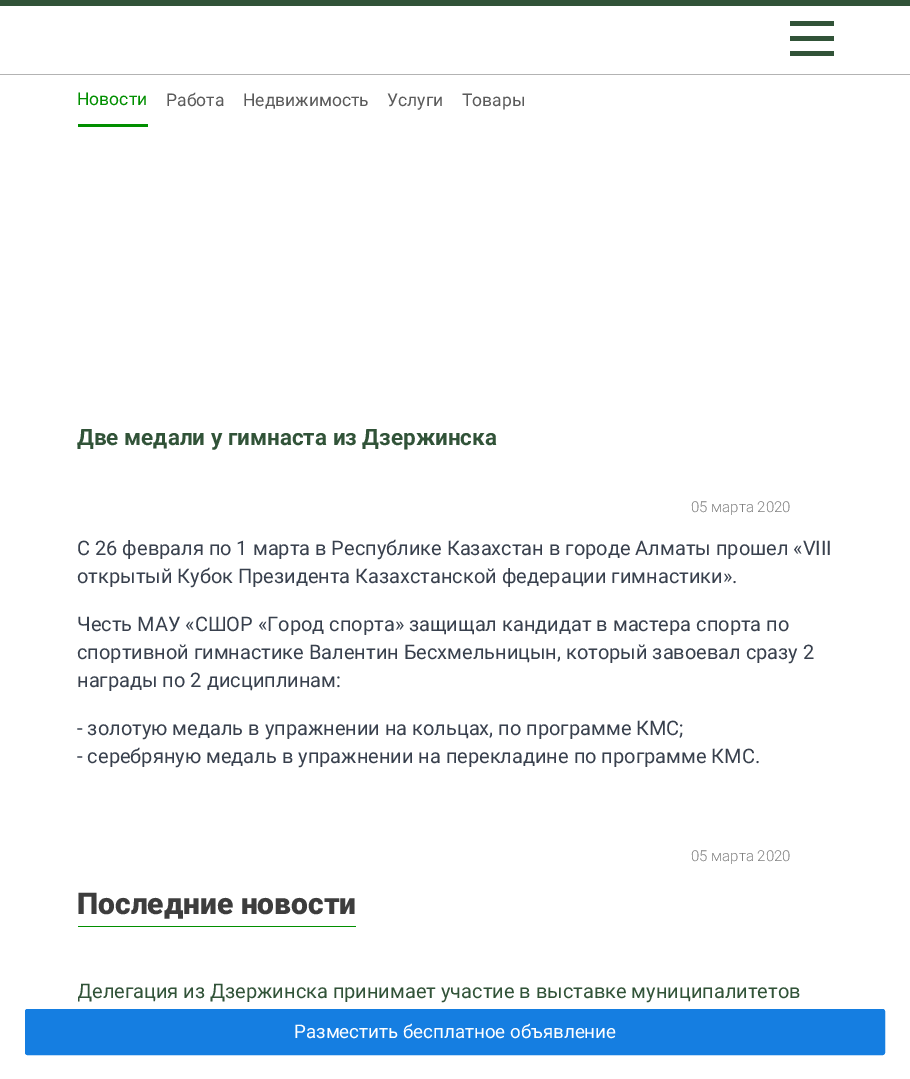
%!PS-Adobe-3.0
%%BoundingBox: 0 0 910 1079
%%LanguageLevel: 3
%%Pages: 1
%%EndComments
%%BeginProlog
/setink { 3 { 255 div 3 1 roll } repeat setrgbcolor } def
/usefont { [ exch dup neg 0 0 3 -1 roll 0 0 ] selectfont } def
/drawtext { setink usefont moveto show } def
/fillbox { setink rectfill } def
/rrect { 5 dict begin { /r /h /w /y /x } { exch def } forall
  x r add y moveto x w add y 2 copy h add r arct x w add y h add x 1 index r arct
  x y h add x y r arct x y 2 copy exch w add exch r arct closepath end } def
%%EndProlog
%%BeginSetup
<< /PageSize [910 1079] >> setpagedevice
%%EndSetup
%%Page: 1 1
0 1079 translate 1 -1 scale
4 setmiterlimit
0 0 910 1079 255 255 255 fillbox
0 0 910 6 49 83 56 fillbox
0 74 910 1 179 179 179 fillbox
790 21 44 5 49 83 56 fillbox
790 36 44 5 49 83 56 fillbox
790 51 44 5 49 83 56 fillbox
78 124 70 3 1 143 0 fillbox
(Новости) 77 105 /Roboto-Regular 17.5 1 143 0 drawtext
(Работа) 166 106 /Roboto-Regular 17.5 91 91 91 drawtext
(Недвижимость) 243 106 /Roboto-Regular 17.5 91 91 91 drawtext
(Услуги) 387 106 /Roboto-Regular 17.5 91 91 91 drawtext
(Товары) 462 106 /Roboto-Regular 17.5 91 91 91 drawtext
(Две медали у гимнаста из Дзержинска) 77 445 /Roboto-Bold 22.5 49 83 56 drawtext
(05 марта 2020) 691 512 /Roboto-Light 15 126 126 126 drawtext
(С 26 февраля по 1 марта в Республике Казахстан в городе Алматы прошел «VIII) 77 555 /Roboto-Regular 20 56 64 77 drawtext
(открытый Кубок Президента Казахстанской федерации гимнастики».) 77 583 /Roboto-Regular 20 56 64 77 drawtext
(Честь МАУ «СШОР «Город спорта» защищал кандидат в мастера спорта по) 77 631 /Roboto-Regular 20 56 64 77 drawtext
(спортивной гимнастике Валентин Бесхмельницын, который завоевал сразу 2) 77 659 /Roboto-Regular 20 56 64 77 drawtext
(награды по 2 дисциплинам:) 77 687 /Roboto-Regular 20 56 64 77 drawtext
(- золотую медаль в упражнении на кольцах, по программе КМС;) 77 735 /Roboto-Regular 20 56 64 77 drawtext
(- серебряную медаль в упражнении на перекладине по программе КМС.) 77 763 /Roboto-Regular 20 56 64 77 drawtext
(05 марта 2020) 691 861 /Roboto-Light 15 126 126 126 drawtext
78 926 278 1 1 143 0 fillbox
(Последние новости) 77 914 /Roboto-Black 30 61 61 61 drawtext
gsave
78 979 756 94 rectclip
(Делегация из Дзержинска принимает участие в выставке муниципалитетов) 77 998 /Roboto-Regular 20 49 83 56 drawtext
grestore
21 126 225 setink
25.5 1009.5 859 45 2 rrect gsave fill grestore
stroke
(Разместить бесплатное объявление) 294 1038 /Roboto-Regular 18.75 255 255 255 drawtext
showpage
%%EOF
